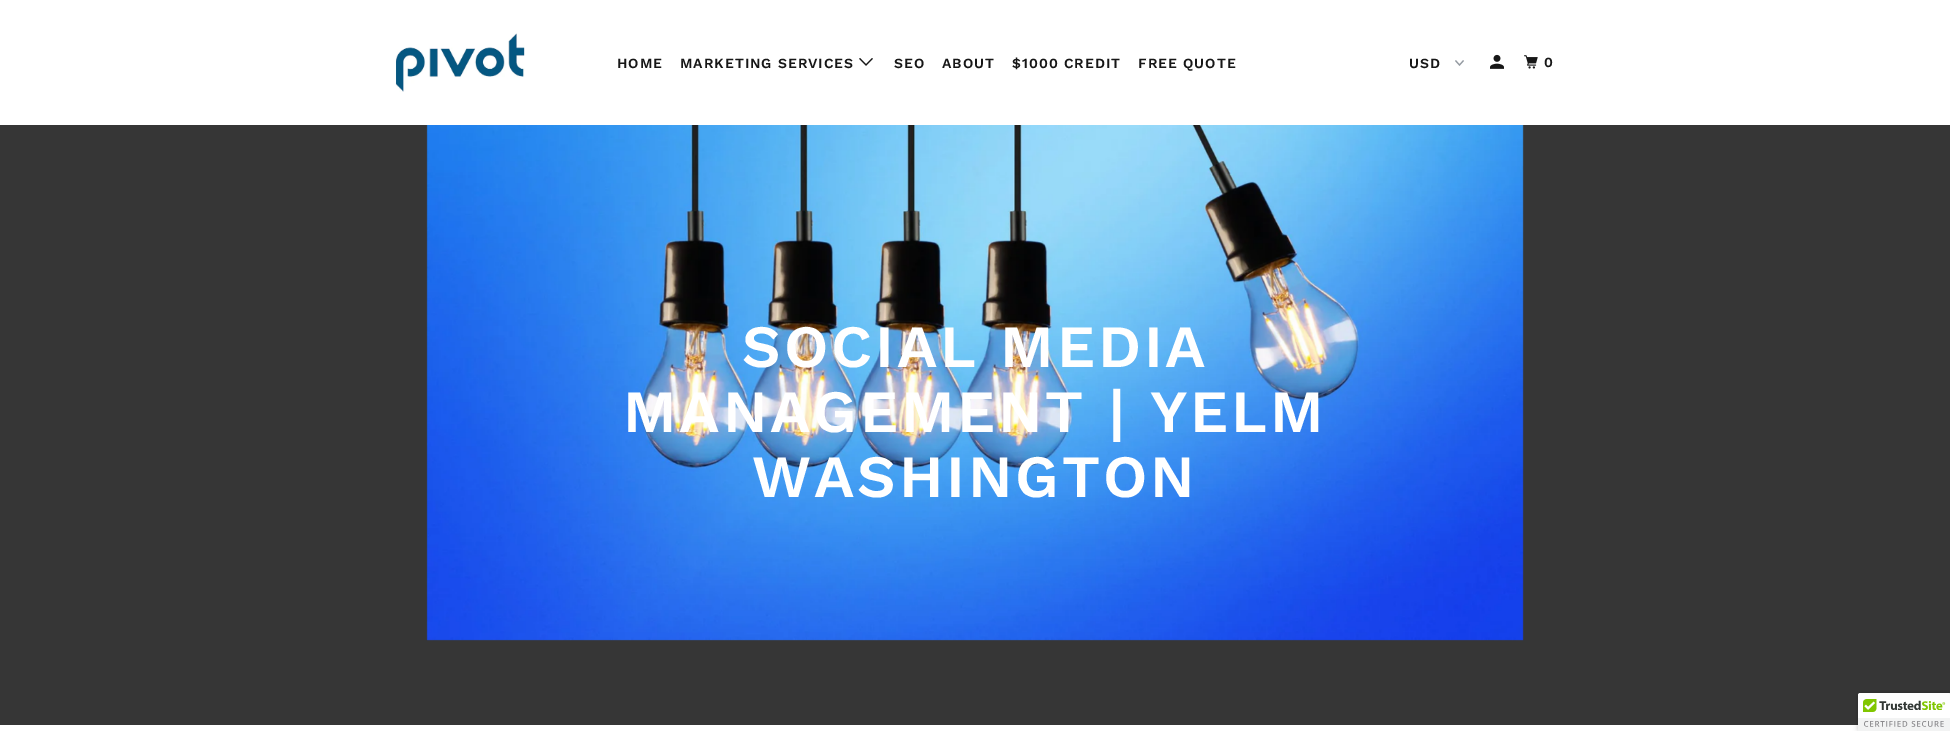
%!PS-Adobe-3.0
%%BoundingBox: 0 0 1950 731
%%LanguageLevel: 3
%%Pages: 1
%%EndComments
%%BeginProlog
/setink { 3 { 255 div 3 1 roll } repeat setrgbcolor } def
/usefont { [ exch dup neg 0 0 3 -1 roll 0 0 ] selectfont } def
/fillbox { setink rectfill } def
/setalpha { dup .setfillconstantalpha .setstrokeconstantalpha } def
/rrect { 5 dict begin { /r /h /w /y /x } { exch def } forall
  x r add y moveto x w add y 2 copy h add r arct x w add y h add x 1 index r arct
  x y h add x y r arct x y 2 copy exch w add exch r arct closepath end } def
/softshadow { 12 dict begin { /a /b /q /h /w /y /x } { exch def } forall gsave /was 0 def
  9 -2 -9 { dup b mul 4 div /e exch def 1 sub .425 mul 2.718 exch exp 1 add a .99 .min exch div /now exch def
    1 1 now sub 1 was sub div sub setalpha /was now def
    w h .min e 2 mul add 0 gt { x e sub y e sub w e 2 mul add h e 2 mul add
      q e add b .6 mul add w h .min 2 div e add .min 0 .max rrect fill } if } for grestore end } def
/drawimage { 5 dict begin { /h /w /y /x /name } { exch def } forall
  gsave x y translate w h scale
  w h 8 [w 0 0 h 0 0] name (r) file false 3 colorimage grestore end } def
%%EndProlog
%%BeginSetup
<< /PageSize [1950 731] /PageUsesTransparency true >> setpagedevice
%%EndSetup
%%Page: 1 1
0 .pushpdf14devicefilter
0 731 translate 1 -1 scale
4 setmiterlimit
0 0 1950 731 255 255 255 fillbox
(assets/img1.rgb) 395 33 130 59 drawimage
/WorkSans-SemiBold 14 usefont
23 23 23 setink
617 68 moveto 1 0 (HOME) ashow
680 68 moveto 1 0 (MARKETING SERVICES) ashow
(assets/img2.rgb) 859 58 14 8 drawimage
894 68 moveto 1 0 (SEO) ashow
942 68 moveto 1 0 (ABOUT) ashow
1012 68 moveto 1 0 ($1000 CREDIT) ashow
1138 68 moveto 1 0 (FREE QUOTE) ashow
(assets/img3.rgb) 1455 60 9 6 drawimage
1409 68 moveto 1 0 (USD) ashow
(assets/img4.rgb) 1490 54 14 15 drawimage
(assets/img5.rgb) 1524 55 14 14 drawimage
1544 67 moveto 1 0 (0) ashow
0 125 1950 600 54 54 54 fillbox
(assets/img6.rgb) 426 125 1098 516 drawimage
/WorkSans-SemiBold 60 usefont
255 255 255 setink
742 367 moveto 3 0 (SOCIAL MEDIA) ashow
623 432 moveto 3 0 (MANAGEMENT | YELM) ashow
752 497 moveto 3 0 (WASHINGTON) ashow
0 0 0 setink
1858 693 92 38 2 2.5 0.2 softshadow
255 255 255 setink
1860 693 moveto 1950 693 lineto 1950 731 lineto 1858 731 lineto 1858 695 lineto 1858 694 1859 693 1860 693 curveto closepath fill
(assets/img7.rgb) 1858 693 92 38 drawimage
.poppdf14devicefilter showpage
%%EOF
